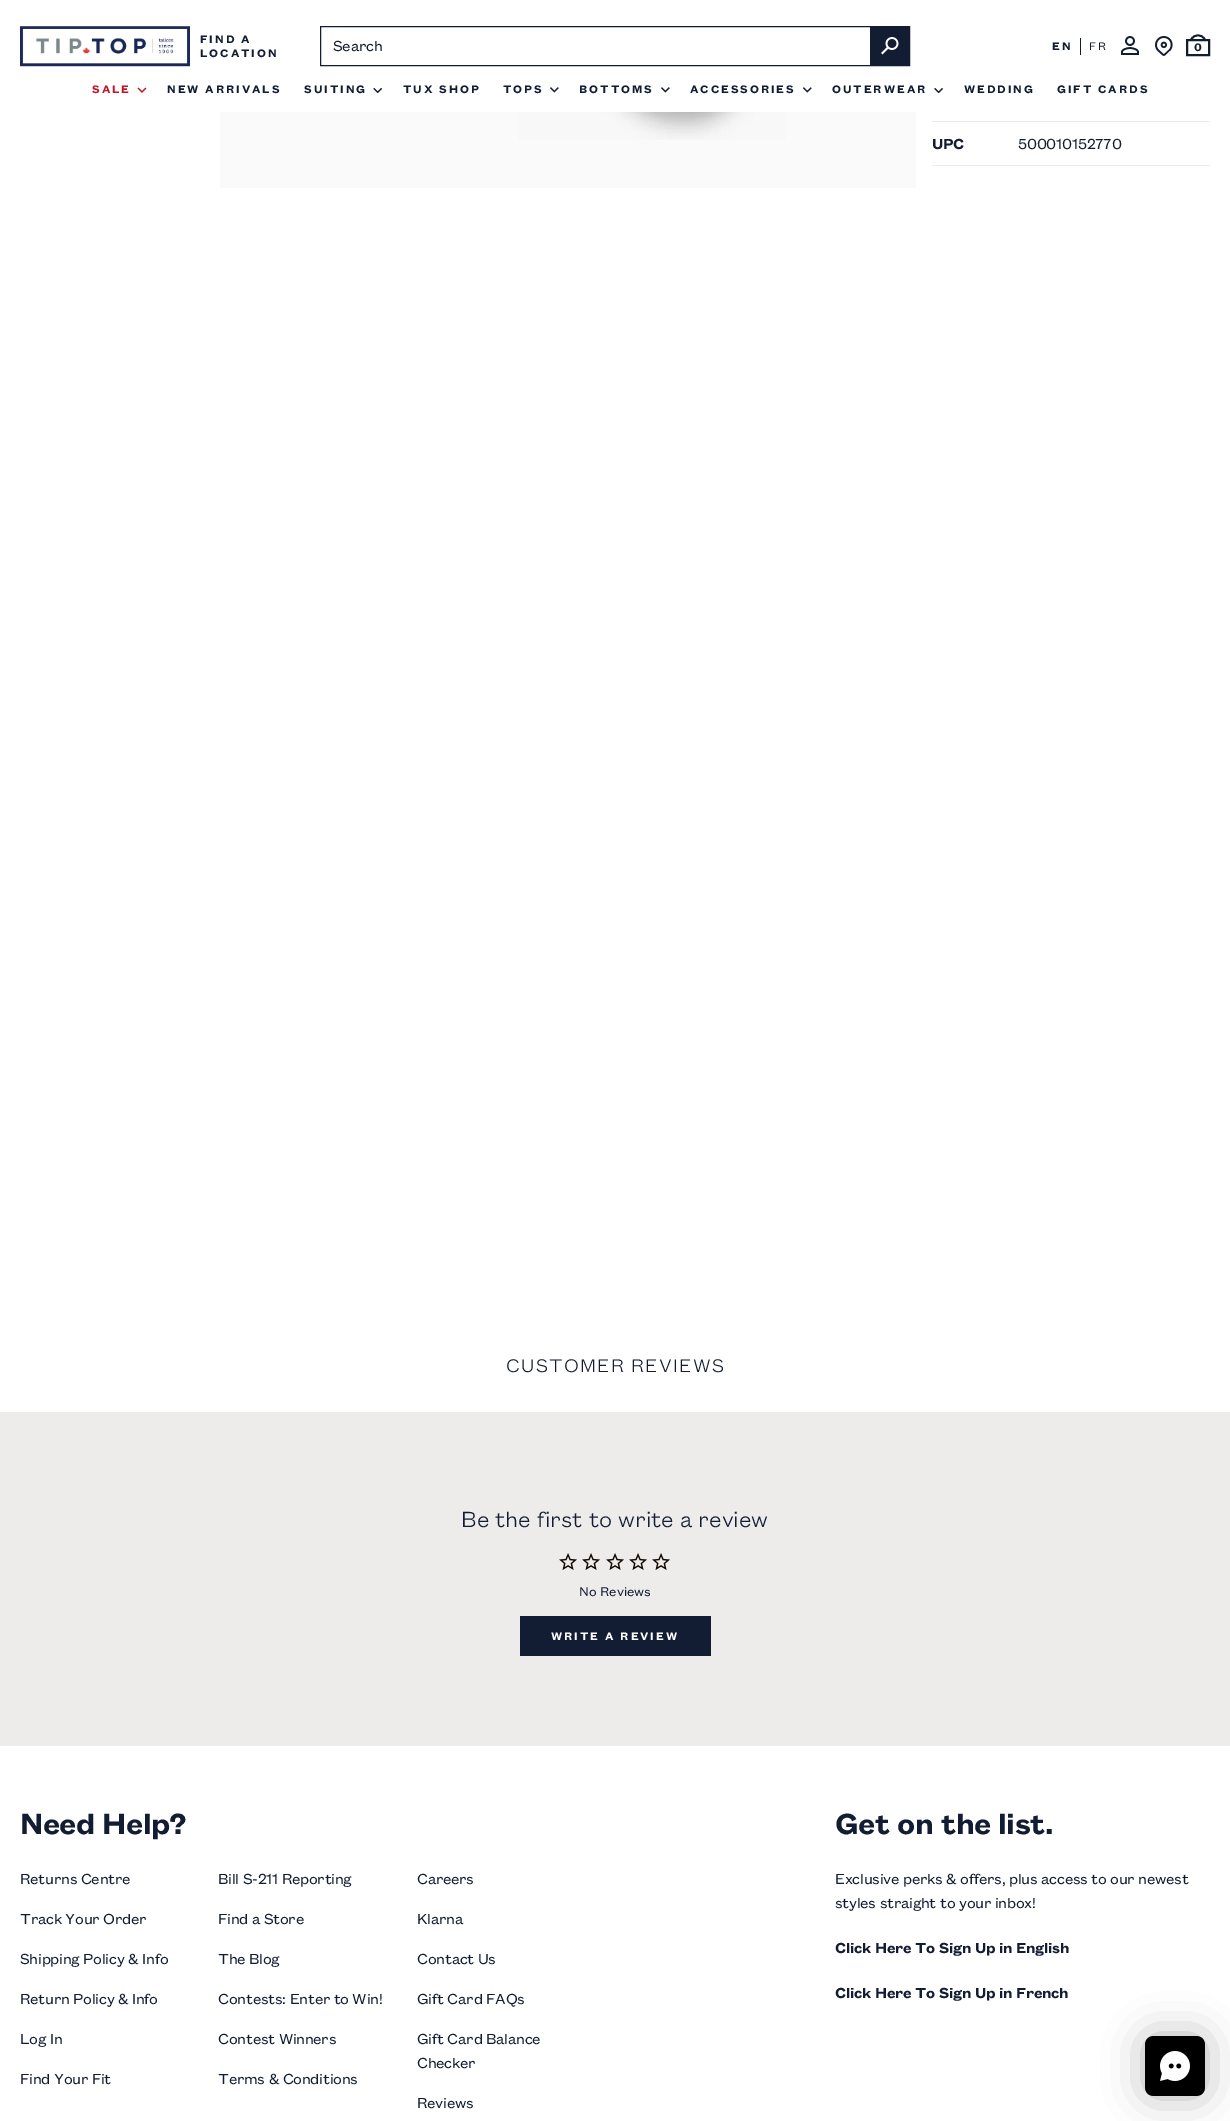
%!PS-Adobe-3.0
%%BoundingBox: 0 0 1230 2121
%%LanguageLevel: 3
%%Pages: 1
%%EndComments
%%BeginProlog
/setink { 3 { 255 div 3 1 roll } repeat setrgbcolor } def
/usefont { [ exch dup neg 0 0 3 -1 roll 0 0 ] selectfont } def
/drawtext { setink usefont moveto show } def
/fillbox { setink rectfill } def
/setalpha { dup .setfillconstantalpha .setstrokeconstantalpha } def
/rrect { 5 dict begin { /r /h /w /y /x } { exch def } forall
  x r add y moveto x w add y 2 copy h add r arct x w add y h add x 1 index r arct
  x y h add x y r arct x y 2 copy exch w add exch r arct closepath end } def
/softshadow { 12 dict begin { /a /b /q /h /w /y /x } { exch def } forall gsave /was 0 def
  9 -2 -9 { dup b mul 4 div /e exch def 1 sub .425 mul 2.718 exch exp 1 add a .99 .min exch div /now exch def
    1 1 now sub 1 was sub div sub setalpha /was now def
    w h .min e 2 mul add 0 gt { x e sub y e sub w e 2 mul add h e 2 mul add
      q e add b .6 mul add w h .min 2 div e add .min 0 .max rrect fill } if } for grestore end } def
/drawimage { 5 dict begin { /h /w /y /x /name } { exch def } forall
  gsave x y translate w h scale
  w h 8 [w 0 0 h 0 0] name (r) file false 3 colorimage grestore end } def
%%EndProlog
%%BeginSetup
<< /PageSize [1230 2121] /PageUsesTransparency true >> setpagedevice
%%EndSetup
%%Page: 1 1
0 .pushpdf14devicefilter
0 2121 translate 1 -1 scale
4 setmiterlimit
0 0 1230 2121 255 255 255 fillbox
(assets/img1.rgb) 20 26 170 41 drawimage
/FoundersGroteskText-SemiBold 12 usefont
18 29 51 setink
200 43 moveto 1.9 0 (FIND A) ashow
200 57 moveto 1.9 0 (LOCATION) ashow
320.5 26.5 589 39 rectstroke
/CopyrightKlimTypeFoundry-Regular 16 usefont
333 51 moveto -0.32 0 (Search) ashow
870 27 39 38 18 29 51 fillbox
(assets/img2.rgb) 881 37 18 18 drawimage
1080 38 1 17 18 29 51 fillbox
/FoundersGroteskText-SemiBold 12 usefont
1052 50 moveto 1.9 0 (EN) ashow
/CopyrightKlimTypeFoundry-Regular 12 usefont
1089 50 moveto 1.9 0 (FR) ashow
(assets/img3.rgb) 1121 36 18 19 drawimage
(assets/img4.rgb) 1155 36 18 20 drawimage
2 setlinewidth
1187 40 22 15 rectstroke
1.8 setlinewidth
2 setlinecap
1191.5 39 moveto 1194.5 34 1201.5 34 1204.5 39 curveto stroke
(0) 1194 51 /FoundersGroteskText-SemiBold 12 18 29 51 drawtext
193 23 42 setink
92 93 moveto 1.9 0 (SALE) ashow
(assets/img5.rgb) 137 87 10 6 drawimage
18 29 51 setink
167 93 moveto 1.9 0 (NEW ARRIVALS) ashow
304 93 moveto 1.9 0 (SUITING) ashow
(assets/img6.rgb) 373 87 10 6 drawimage
403 93 moveto 1.9 0 (TUX SHOP) ashow
503 93 moveto 1.9 0 (TOPS) ashow
(assets/img7.rgb) 550 87 9 6 drawimage
579 93 moveto 1.9 0 (BOTTOMS) ashow
(assets/img8.rgb) 661 87 9 6 drawimage
690 93 moveto 1.9 0 (ACCESSORIES) ashow
(assets/img9.rgb) 802 87 10 6 drawimage
832 93 moveto 1.9 0 (OUTERWEAR) ashow
(assets/img10.rgb) 934 87 9 6 drawimage
964 93 moveto 1.9 0 (WEDDING) ashow
1057 93 moveto 1.9 0 (GIFT CARDS) ashow
220 112 696 76 250 250 250 fillbox
(assets/img11.rgb) 518 112 268 28 drawimage
932 121 278 1 237 236 234 fillbox
932 165 278 1 237 236 234 fillbox
/FoundersGroteskText-SemiBold 16 usefont
18 29 51 setink
932 149 moveto -0.32 0 (UPC) ashow
/CopyrightKlimTypeFoundry-Regular 16 usefont
1018 149 moveto -0.32 0 (500010152770) ashow
/FoundersGroteskText-Light 20 usefont
506 1372 moveto 1.25 0 (CUSTOMER REVIEWS) ashow
0 1412 1230 334 237 236 234 fillbox
(Be the first to write a review) 461 1527 /FoundersGroteskText-Light 24 18 29 51 drawtext
(assets/img12.rgb) 559 1553 18 17 drawimage
(assets/img12.rgb) 582 1553 18 17 drawimage
(assets/img12.rgb) 606 1553 18 17 drawimage
(assets/img12.rgb) 629 1553 18 17 drawimage
(assets/img12.rgb) 652 1553 18 17 drawimage
(No Reviews) 579 1596 /CopyrightKlimTypeFoundry-Regular 14 18 29 51 drawtext
520 1616 191 40 18 29 51 fillbox
/FoundersGroteskText-SemiBold 12 usefont
255 255 255 setink
551 1640 moveto 1.9 0 (WRITE A REVIEW) ashow
/FoundersGroteskText-SemiBold 32 usefont
18 29 51 setink
20 1834 moveto -0.6 0 (Need Help?) ashow
/CopyrightKlimTypeFoundry-Regular 16 usefont
20 1884 moveto -0.32 0 (Returns Centre) ashow
218 1884 moveto -0.32 0 (Bill S-211 Reporting) ashow
417 1884 moveto -0.32 0 (Careers) ashow
20 1924 moveto -0.32 0 (Track Your Order) ashow
218 1924 moveto -0.32 0 (Find a Store) ashow
417 1924 moveto -0.32 0 (Klarna) ashow
20 1964 moveto -0.32 0 (Shipping Policy & Info) ashow
218 1964 moveto -0.32 0 (The Blog) ashow
417 1964 moveto -0.32 0 (Contact Us) ashow
20 2004 moveto -0.32 0 (Return Policy & Info) ashow
218 2004 moveto -0.32 0 (Contests: Enter to Win!) ashow
417 2004 moveto -0.32 0 (Gift Card FAQs) ashow
20 2044 moveto -0.32 0 (Log In) ashow
218 2044 moveto -0.32 0 (Contest Winners) ashow
417 2044 moveto -0.32 0 (Gift Card Balance) ashow
417 2068 moveto -0.32 0 (Checker) ashow
20 2084 moveto -0.32 0 (Find Your Fit) ashow
218 2084 moveto -0.32 0 (Terms & Conditions) ashow
417 2108 moveto -0.32 0 (Reviews) ashow
/FoundersGroteskText-SemiBold 32 usefont
835 1834 moveto -0.6 0 (Get on the list.) ashow
/CopyrightKlimTypeFoundry-Regular 16 usefont
835 1884 moveto -0.32 0 (Exclusive perks & offers, plus access to our newest) ashow
835 1908 moveto -0.32 0 (styles straight to your inbox!) ashow
/FoundersGroteskText-SemiBold 16 usefont
835 1953 moveto -0.32 0 (Click Here To Sign Up in English) ashow
835 1998 moveto -0.32 0 (Click Here To Sign Up in French) ashow
0 0 0 setink
1145 2036 60 60 8 20 0.3 softshadow
(assets/img13.rgb) 1145 2036 60 60 drawimage
.poppdf14devicefilter showpage
%%EOF
